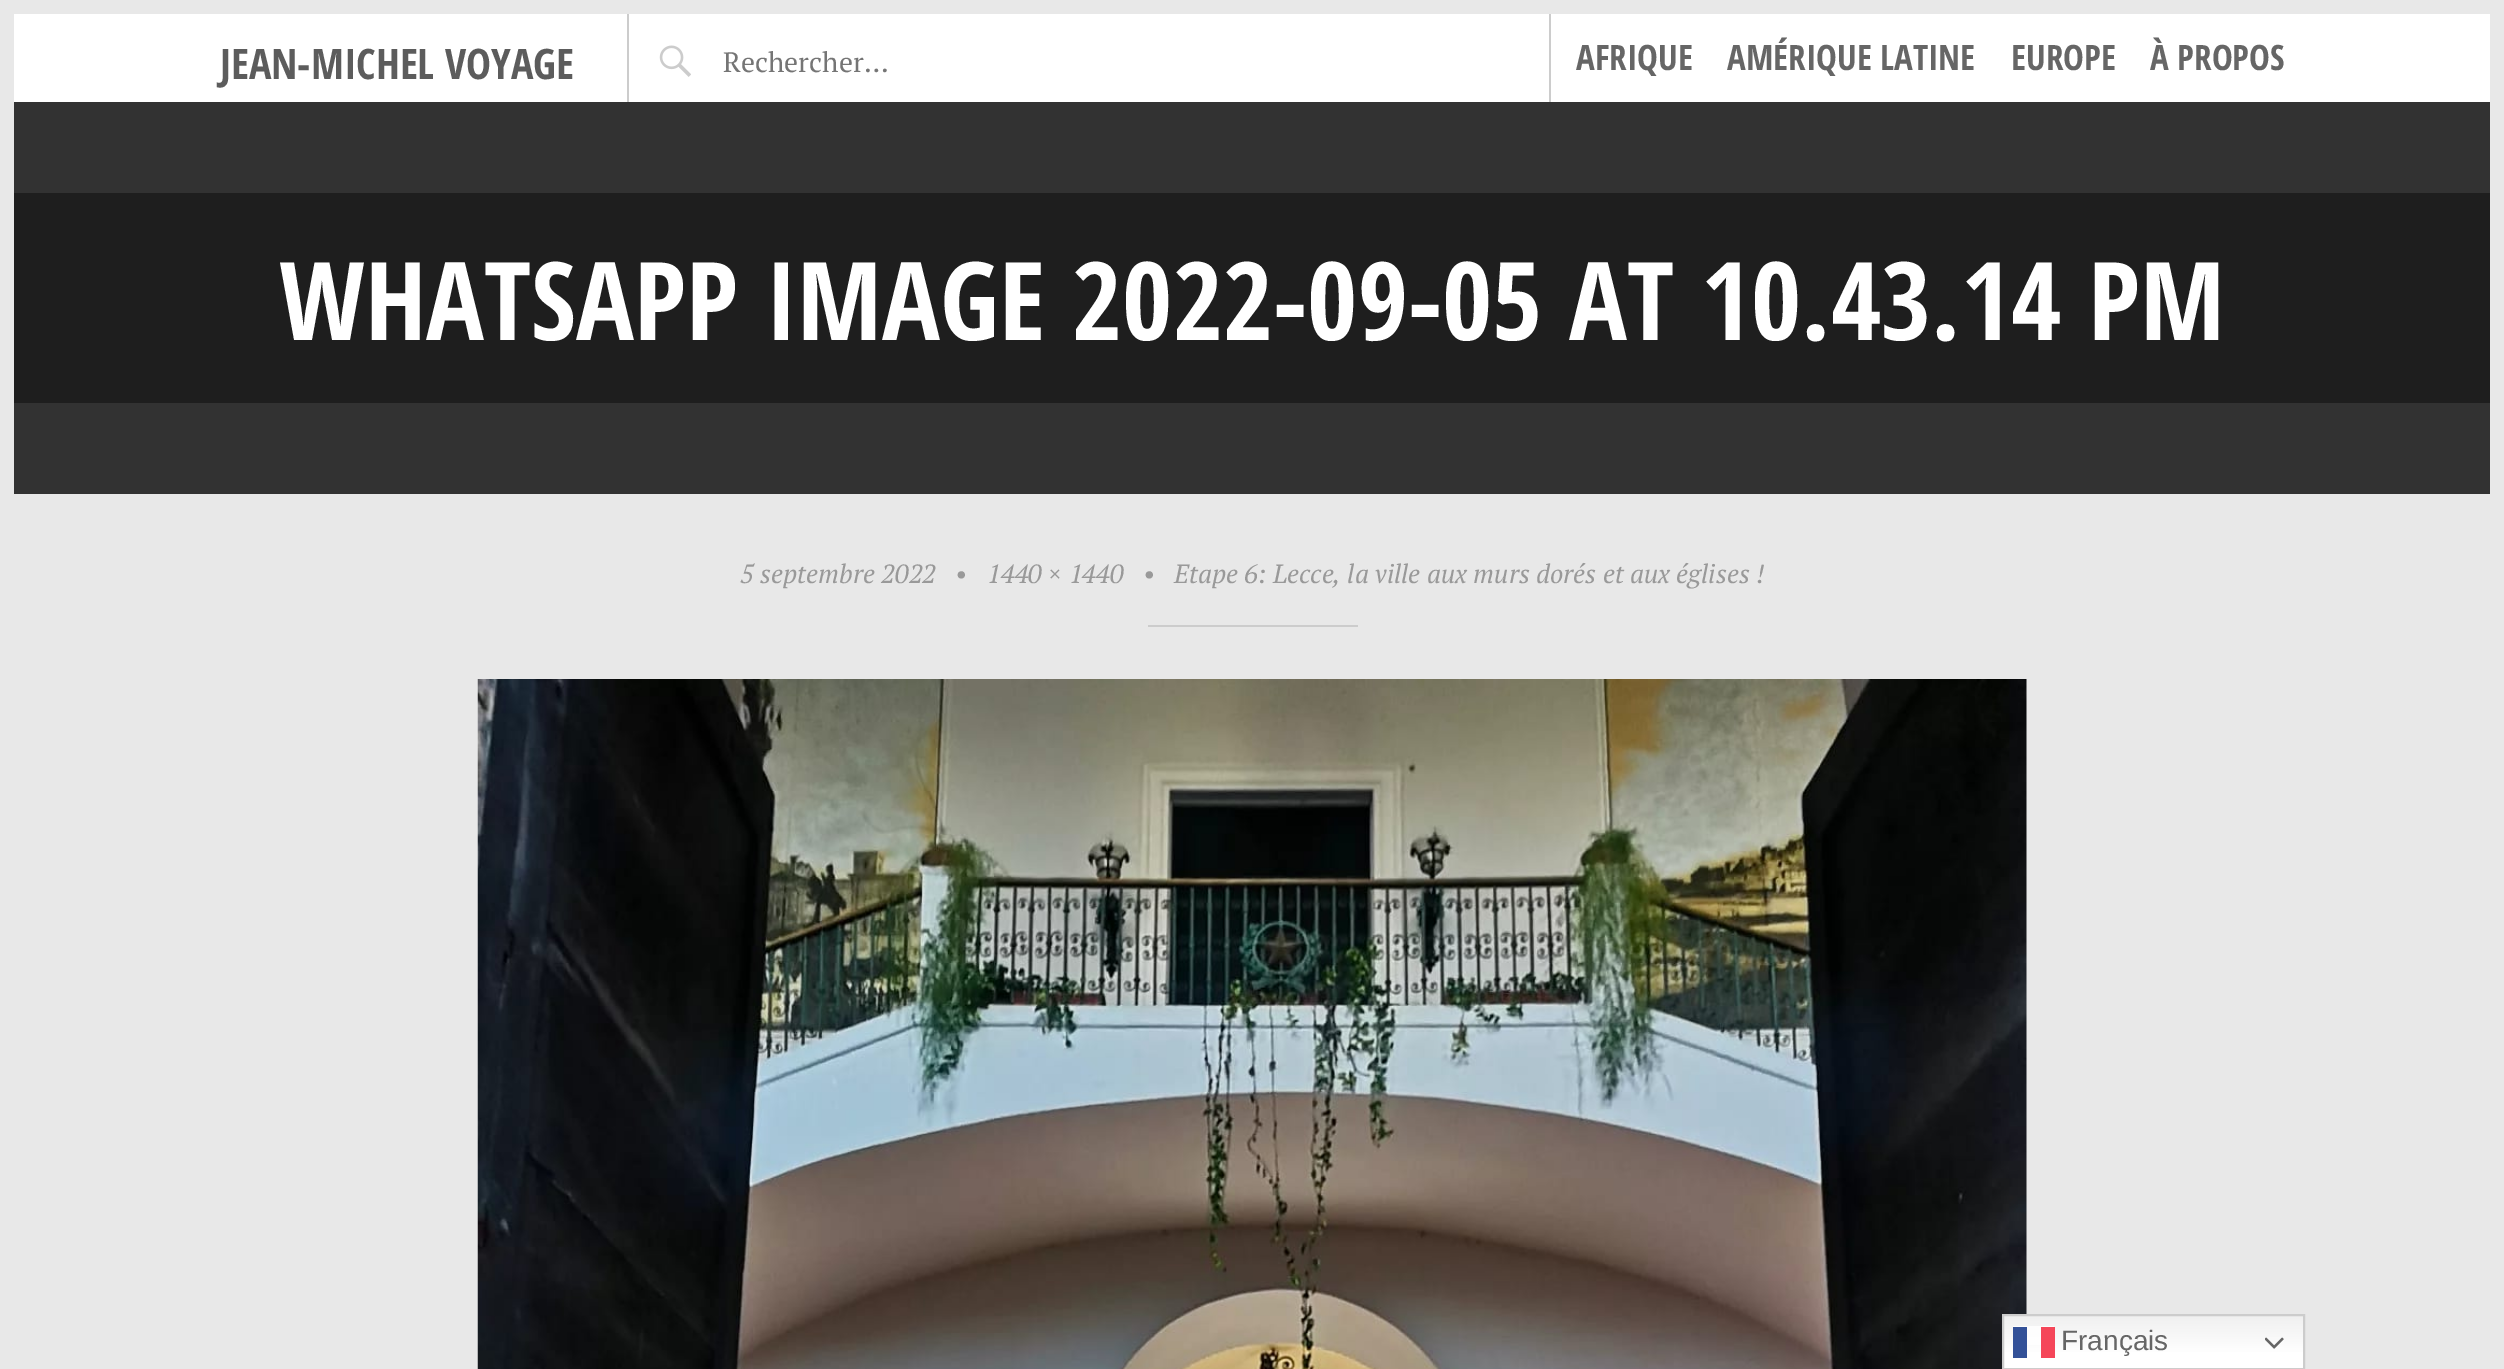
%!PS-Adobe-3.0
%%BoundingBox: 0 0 2504 1369
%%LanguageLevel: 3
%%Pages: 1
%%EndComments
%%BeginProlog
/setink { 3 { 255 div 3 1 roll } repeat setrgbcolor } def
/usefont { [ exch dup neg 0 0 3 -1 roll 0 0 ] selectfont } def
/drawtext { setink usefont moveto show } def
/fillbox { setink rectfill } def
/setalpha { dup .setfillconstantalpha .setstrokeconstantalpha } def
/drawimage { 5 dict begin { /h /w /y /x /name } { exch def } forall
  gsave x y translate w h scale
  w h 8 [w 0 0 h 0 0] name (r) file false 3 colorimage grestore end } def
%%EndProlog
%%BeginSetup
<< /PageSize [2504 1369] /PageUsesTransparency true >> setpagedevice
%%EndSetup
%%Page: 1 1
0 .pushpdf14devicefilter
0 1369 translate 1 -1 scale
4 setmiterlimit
0 0 2504 1369 232 232 232 fillbox
14 14 2476 88 255 255 255 fillbox
627 14 2 88 204 204 204 fillbox
(JEAN-MICHEL VOYAGE) 220 79 /OpenSansCondensed-Bold 42 92 92 92 drawtext
(assets/img1.rgb) 659 45 32 32 drawimage
(Rechercher…) 723 72 /PTSerif-Regular 28 117 117 117 drawtext
1549 14 2 88 204 204 204 fillbox
(AFRIQUE) 1576 70 /OpenSansCondensed-Bold 35 102 102 102 drawtext
(AMÉRIQUE LATINE) 1727 70 /OpenSansCondensed-Bold 35 102 102 102 drawtext
(EUROPE) 2011 70 /OpenSansCondensed-Bold 35 102 102 102 drawtext
(À PROPOS) 2150 70 /OpenSansCondensed-Bold 35 102 102 102 drawtext
14 193 2476 210 30 30 30 fillbox
14 102 2476 91 50 50 50 fillbox
14 403 2476 91 50 50 50 fillbox
(WHATSAPP IMAGE 2022-09-05 AT 10.43.14 PM) 279 340 /OpenSansCondensed-Bold 108.5 255 255 255 drawtext
(5 septembre 2022) 740 583 /PTSerif-Italic 26.25 153 153 153 drawtext
(•) 955 583 /PTSerif-Italic 26.25 153 153 153 drawtext
(1440 × 1440) 987 583 /PTSerif-Italic 26.25 153 153 153 drawtext
(•) 1143 583 /PTSerif-Italic 26.25 153 153 153 drawtext
(Etape 6: Lecce, la ville aux murs dorés et aux églises !) 1174 583 /PTSerif-Italic 26.25 153 153 153 drawtext
1148 625 210 2 204 204 204 fillbox
(assets/img2.rgb) 477 679 1550 690 drawimage
gsave 2004 1316 moveto 2303 1316 lineto 2303 1368 lineto 2004 1368 lineto closepath clip newpath
<< /ShadingType 2 /ColorSpace /DeviceRGB /Coords [2153 1314 2153 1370] /Extend [true true] /Function << /FunctionType 3 /Domain [0 1] /Functions [<< /FunctionType 2 /Domain [0 1] /C0 [0.937 0.937 0.937] /C1 [1 1 1] /N 1 >> << /FunctionType 2 /Domain [0 1] /C0 [1 1 1] /C1 [1 1 1] /N 1 >>] /Bounds [0.7] /Encode [0 1 0 1] >> >> shfill grestore
2 setlinewidth
2003 1315 301 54 rectstroke
0.8 setalpha
2013 1326 41 19 255 255 255 fillbox
1 setalpha
2013 1327 14 31 51 81 152 fillbox
0.8 setalpha
2041 1327 14 31 243 24 48 fillbox
1 setalpha
(Français) 2061 1350 /LiberationSans-Regular 28 102 102 102 drawtext
(assets/img3.rgb) 2265 1337 19 12 drawimage
.poppdf14devicefilter showpage
%%EOF
